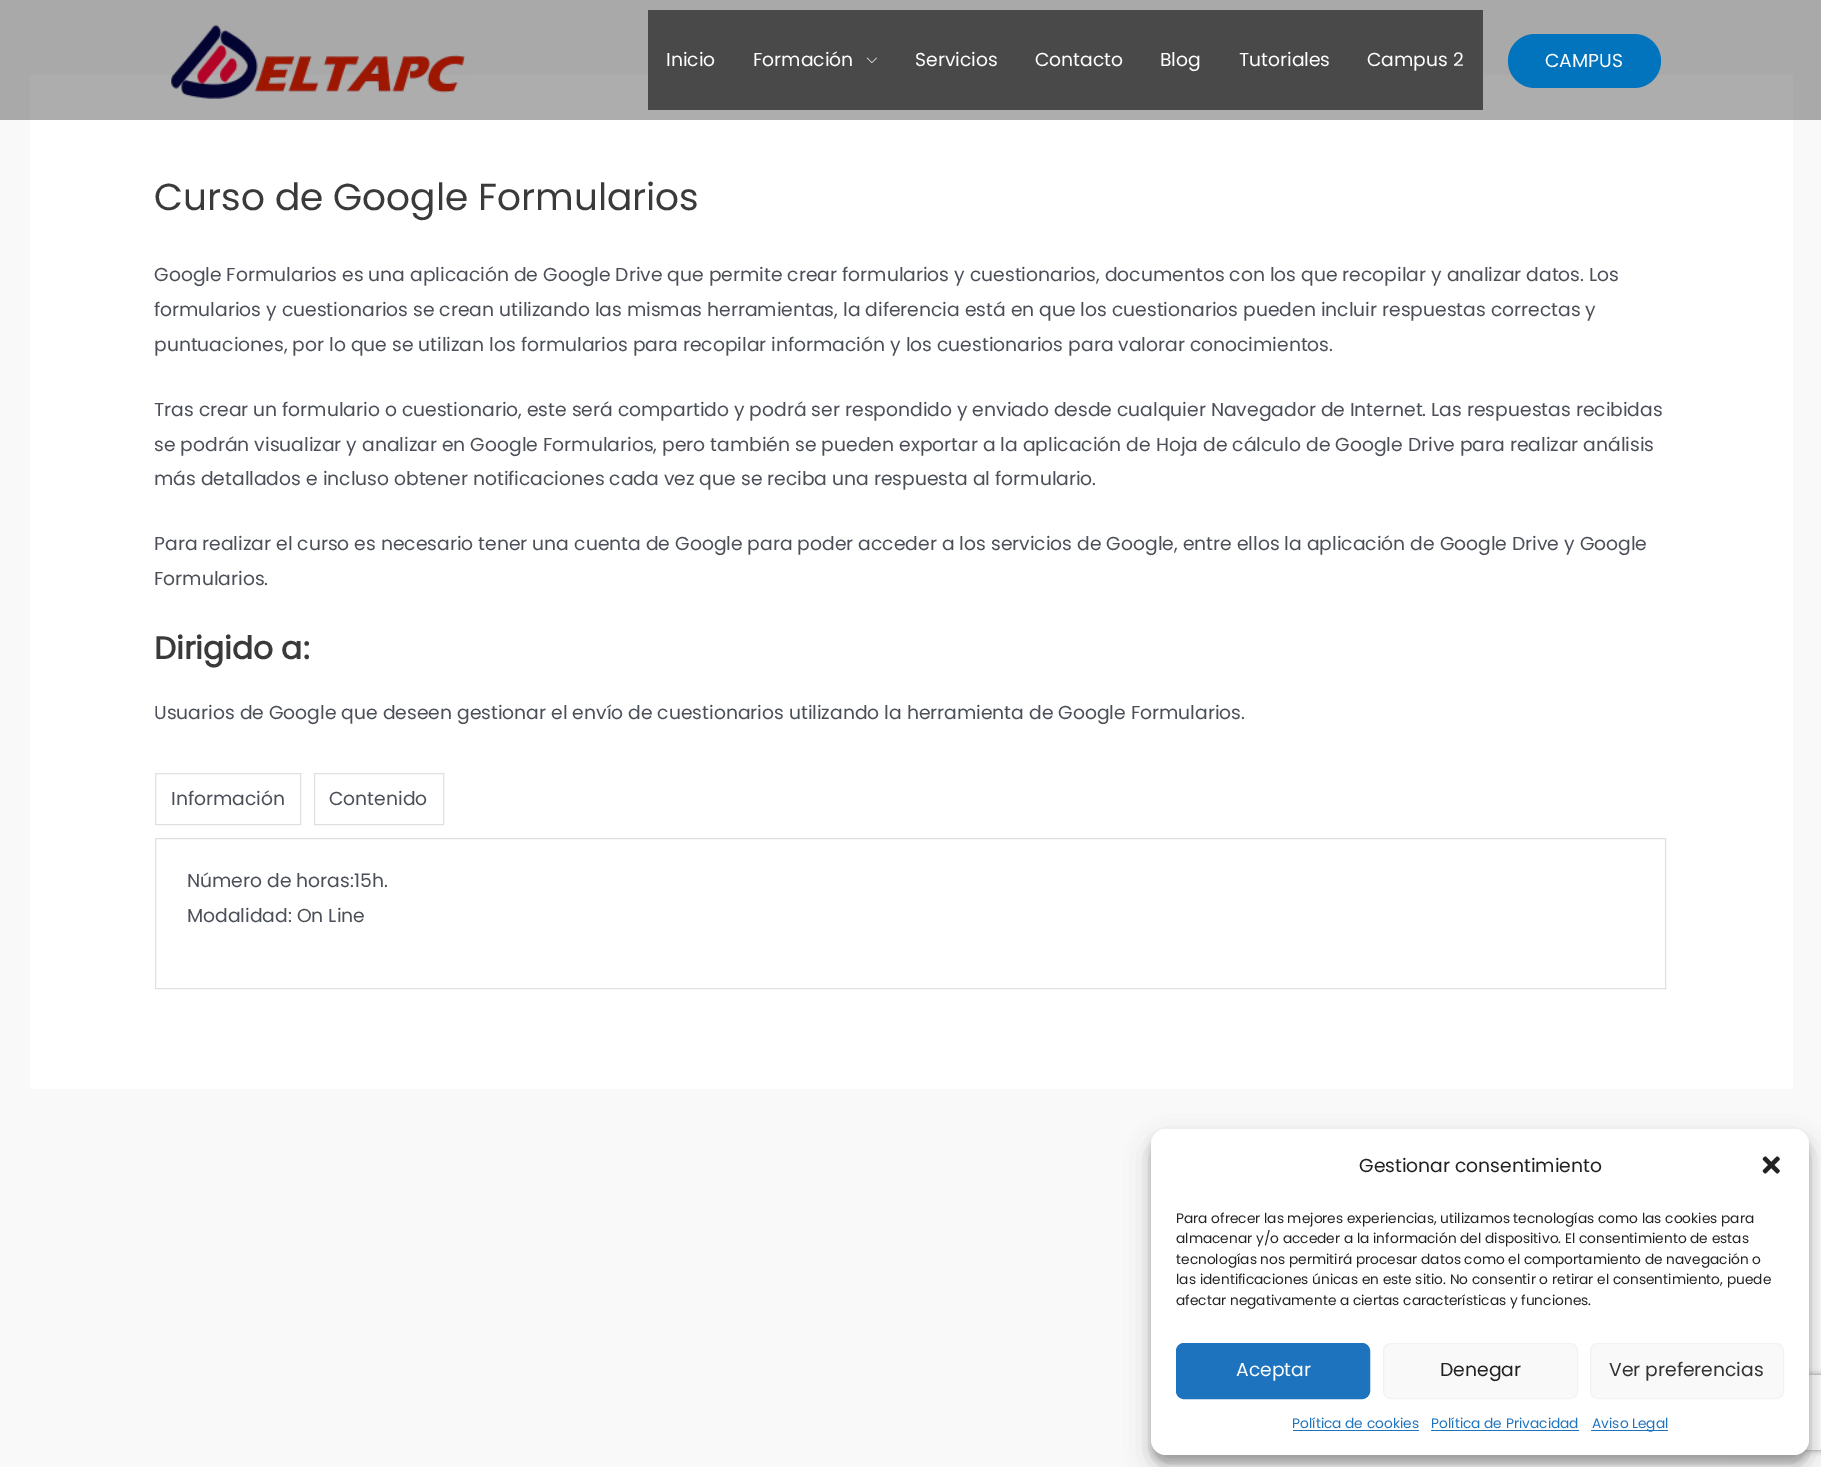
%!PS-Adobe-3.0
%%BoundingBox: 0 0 1821 1467
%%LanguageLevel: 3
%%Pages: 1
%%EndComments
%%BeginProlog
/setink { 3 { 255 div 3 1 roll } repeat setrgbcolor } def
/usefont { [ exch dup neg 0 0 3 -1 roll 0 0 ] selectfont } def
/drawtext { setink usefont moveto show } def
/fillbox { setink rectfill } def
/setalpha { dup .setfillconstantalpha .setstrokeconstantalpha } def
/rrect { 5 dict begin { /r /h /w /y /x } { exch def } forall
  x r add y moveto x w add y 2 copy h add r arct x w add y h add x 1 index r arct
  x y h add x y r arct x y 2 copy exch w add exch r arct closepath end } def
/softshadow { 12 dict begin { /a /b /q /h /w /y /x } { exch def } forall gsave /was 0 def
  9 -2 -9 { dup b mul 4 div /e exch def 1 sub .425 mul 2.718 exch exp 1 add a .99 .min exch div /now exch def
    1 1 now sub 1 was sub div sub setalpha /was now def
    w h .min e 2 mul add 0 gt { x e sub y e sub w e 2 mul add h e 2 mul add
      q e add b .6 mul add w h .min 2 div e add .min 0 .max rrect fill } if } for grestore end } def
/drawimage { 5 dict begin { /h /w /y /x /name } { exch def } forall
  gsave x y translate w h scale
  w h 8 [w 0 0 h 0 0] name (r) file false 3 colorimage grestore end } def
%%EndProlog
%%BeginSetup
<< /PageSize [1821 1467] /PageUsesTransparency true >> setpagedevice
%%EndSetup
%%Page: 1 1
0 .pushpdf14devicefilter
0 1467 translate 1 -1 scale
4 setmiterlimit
0 0 1821 1467 249 249 249 fillbox
0 0 1821 120 169 169 169 fillbox
30 75 1763 45 173 173 173 fillbox
(assets/img1.rgb) 171 24 294 75 drawimage
648 10 835 100 73 73 73 fillbox
(Inicio) 666 66 /Poppins-Regular 18.75 255 255 255 drawtext
(Formación) 753 66 /Poppins-Regular 18.75 255 255 255 drawtext
(assets/img2.rgb) 866 57 11 6 drawimage
(Servicios) 915 66 /Poppins-Regular 18.75 255 255 255 drawtext
(Contacto) 1035 66 /Poppins-Regular 18.75 255 255 255 drawtext
(Blog) 1160 66 /Poppins-Regular 18.75 255 255 255 drawtext
(Tutoriales) 1239 66 /Poppins-Regular 18.75 255 255 255 drawtext
(Campus 2) 1367 66 /Poppins-Regular 18.75 255 255 255 drawtext
2 116 190 setink
1508 34 153 54 27 rrect fill
(CAMPUS) 1545 67 /Poppins-Regular 18.75 255 255 255 drawtext
30 120 1763 969 255 255 255 fillbox
(Curso de Google Formularios) 154 210 /Poppins-Regular 37.5 58 58 58 drawtext
(Google Formularios es una aplicación de Google Drive que permite crear formularios y cuestionarios, documentos con los que recopilar y analizar datos. Los) 154 281 /Poppins-Regular 18.75 75 79 88 drawtext
(formularios y cuestionarios se crean utilizando las mismas herramientas, la diferencia está en que los cuestionarios pueden incluir respuestas correctas y) 154 316 /Poppins-Regular 18.75 75 79 88 drawtext
(puntuaciones, por lo que se utilizan los formularios para recopilar información y los cuestionarios para valorar conocimientos.) 154 351 /Poppins-Regular 18.75 75 79 88 drawtext
(Tras crear un formulario o cuestionario, este será compartido y podrá ser respondido y enviado desde cualquier Navegador de Internet. Las respuestas recibidas) 154 416 /Poppins-Regular 18.75 75 79 88 drawtext
(se podrán visualizar y analizar en Google Formularios, pero también se pueden exportar a la aplicación de Hoja de cálculo de Google Drive para realizar análisis) 154 451 /Poppins-Regular 18.75 75 79 88 drawtext
(más detallados e incluso obtener notificaciones cada vez que se reciba una respuesta al formulario.) 154 485 /Poppins-Regular 18.75 75 79 88 drawtext
(Para realizar el curso es necesario tener una cuenta de Google para poder acceder a los servicios de Google, entre ellos la aplicación de Google Drive y Google) 154 550 /Poppins-Regular 18.75 75 79 88 drawtext
(Formularios.) 154 585 /Poppins-Regular 18.75 75 79 88 drawtext
(Dirigido a:) 154 659 /Poppins-Bold 31.25 58 58 58 drawtext
(Usuarios de Google que deseen gestionar el envío de cuestionarios utilizando la herramienta de Google Formularios.) 154 719 /Poppins-Regular 18.75 75 79 88 drawtext
224 224 224 setink
155.5 773.5 145 51 rectstroke
(Información) 171 805 /Poppins-Regular 18.75 75 79 88 drawtext
224 224 224 setink
314.5 773.5 129 51 rectstroke
(Contenido) 329 805 /Poppins-Regular 18.75 75 79 88 drawtext
224 224 224 setink
155.5 838.5 1510 150 rectstroke
(Número de horas:15h.) 187 887 /Poppins-Regular 18.75 75 79 88 drawtext
(Modalidad: On Line) 187 922 /Poppins-Regular 18.75 75 79 88 drawtext
0 0 0 setink
1151 1136 658 327 15 4 0.23 softshadow
1151 1141 658 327 15 12.5 0.19 softshadow
gsave
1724 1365 moveto 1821 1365 lineto 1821 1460 lineto 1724 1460 lineto closepath 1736.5 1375 moveto 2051.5 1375 lineto 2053 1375 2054 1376 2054 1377.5 curveto 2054 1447.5 lineto 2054 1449 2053 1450 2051.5 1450 curveto 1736.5 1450 lineto 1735 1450 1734 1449 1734 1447.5 curveto 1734 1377.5 lineto 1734 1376 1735 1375 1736.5 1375 curveto closepath eoclip newpath
128 128 128 setink
1734 1375 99 75 2.5 3 1 softshadow
grestore
255 255 255 setink
1151 1129 658 326 15 rrect fill
(Gestionar consentimiento) 1359 1172 /Poppins-Regular 18.75 34 34 34 drawtext
(assets/img3.rgb) 1762 1156 18 18 drawimage
(Para ofrecer las mejores experiencias, utilizamos tecnologías como las cookies para) 1176 1223 /Poppins-Regular 13.75 34 34 34 drawtext
(almacenar y/o acceder a la información del dispositivo. El consentimiento de estas) 1176 1243 /Poppins-Regular 13.75 34 34 34 drawtext
(tecnologías nos permitirá procesar datos como el comportamiento de navegación o) 1176 1264 /Poppins-Regular 13.75 34 34 34 drawtext
(las identificaciones únicas en este sitio. No consentir o retirar el consentimiento, puede) 1176 1284 /Poppins-Regular 13.75 34 34 34 drawtext
(afectar negativamente a ciertas características y funciones.) 1176 1305 /Poppins-Regular 13.75 34 34 34 drawtext
30 115 190 setink
1176.5 1343.5 193 55 7.5 rrect gsave fill grestore
stroke
(Aceptar) 1236 1376 /Poppins-Regular 18.75 255 255 255 drawtext
249 249 249 setink
1383.5 1343.5 194 55 7.5 rrect gsave fill grestore
242 242 242 setink
stroke
(Denegar) 1440 1376 /Poppins-Regular 18.75 34 34 34 drawtext
249 249 249 setink
1590.5 1343.5 193 55 7.5 rrect gsave fill grestore
242 242 242 setink
stroke
(Ver preferencias) 1609 1376 /Poppins-Regular 18.75 51 51 51 drawtext
(Política de cookies) 1292 1428 /Poppins-Regular 13.75 30 115 190 drawtext
1293 1430 126 1 30 115 190 fillbox
(Política de Privacidad) 1431 1428 /Poppins-Regular 13.75 30 115 190 drawtext
1431 1430 148 1 30 115 190 fillbox
1591 1430 77 1 30 115 190 fillbox
(Aviso Legal) 1592 1428 /Poppins-Regular 13.75 30 115 190 drawtext
.poppdf14devicefilter showpage
%%EOF
